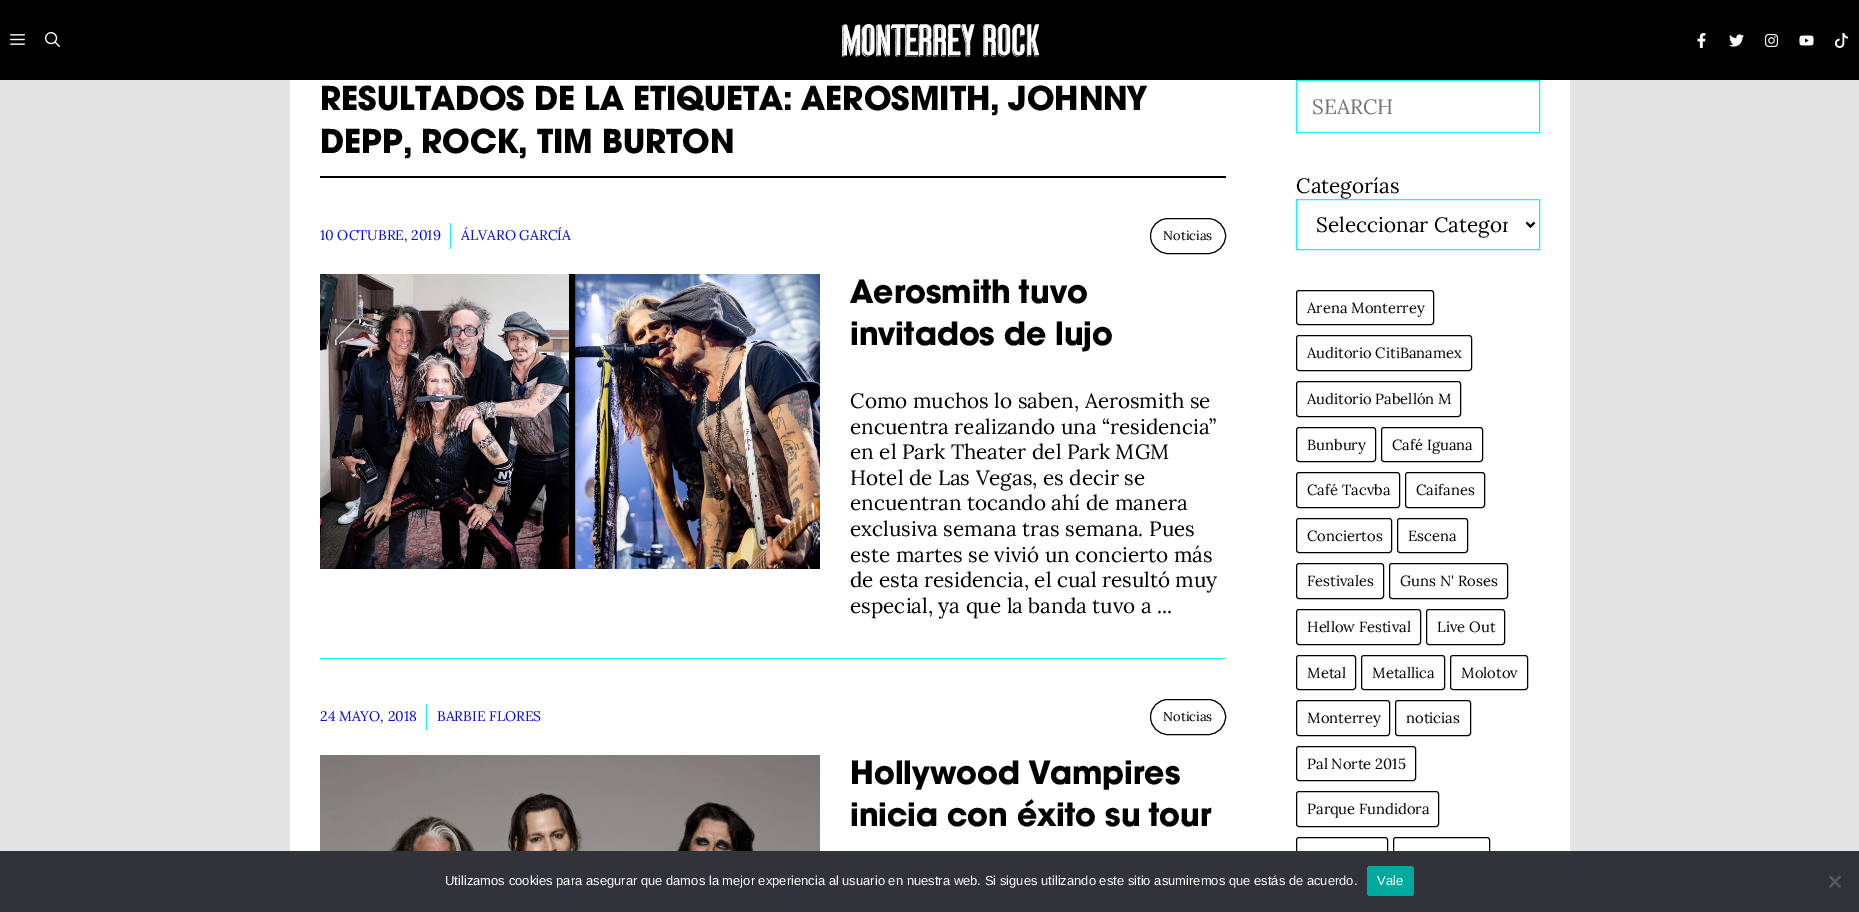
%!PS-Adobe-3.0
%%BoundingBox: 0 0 1859 912
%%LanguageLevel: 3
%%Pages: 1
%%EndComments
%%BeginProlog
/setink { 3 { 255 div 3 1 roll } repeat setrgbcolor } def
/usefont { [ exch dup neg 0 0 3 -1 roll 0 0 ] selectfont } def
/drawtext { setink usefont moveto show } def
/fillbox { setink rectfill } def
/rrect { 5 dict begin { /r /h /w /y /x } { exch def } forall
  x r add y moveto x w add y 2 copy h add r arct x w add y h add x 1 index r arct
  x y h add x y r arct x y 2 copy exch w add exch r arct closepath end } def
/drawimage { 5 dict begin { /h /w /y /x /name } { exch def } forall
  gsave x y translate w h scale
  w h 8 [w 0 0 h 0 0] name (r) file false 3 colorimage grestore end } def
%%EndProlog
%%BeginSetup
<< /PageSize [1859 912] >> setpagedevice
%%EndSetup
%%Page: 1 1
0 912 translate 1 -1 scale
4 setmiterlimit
0 0 1859 912 228 228 228 fillbox
0 0 1859 80 0 0 0 fillbox
(assets/img1.rgb) 10 34 15 11 drawimage
(assets/img2.rgb) 45 32 15 15 drawimage
(assets/img3.rgb) 842 23 197 34 drawimage
(assets/img4.rgb) 1697 33 9 15 drawimage
(assets/img5.rgb) 1729 34 15 13 drawimage
(assets/img6.rgb) 1765 34 14 13 drawimage
(assets/img7.rgb) 1799 35 15 11 drawimage
(assets/img8.rgb) 1834 33 15 15 drawimage
290 80 1280 771 255 255 255 fillbox
320 176 906 2 0 0 0 fillbox
(RESULTADOS DE LA ETIQUETA: AEROSMITH, JOHNNY) 320 110 /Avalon-Bold 36 0 0 0 drawtext
(DEPP, ROCK, TIM BURTON) 320 153 /Avalon-Bold 36 0 0 0 drawtext
320 658 906 1 13 247 246 fillbox
(10 OCTUBRE, 2019) 320 240 /Lora-Regular 14 6 6 242 drawtext
450 223 1 26 13 247 246 fillbox
(ÁLVARO GARCÍA) 461 240 /Lora-Regular 14 6 6 242 drawtext
0 0 0 setink
1150.5 218.5 75 35 17.5 rrect stroke
(Noticias) 1163 240 /Lora-Regular 13 0 0 0 drawtext
(assets/img9.rgb) 320 274 500 295 drawimage
(Aerosmith tuvo) 850 303 /Avalon-Bold 35 0 0 0 drawtext
(invitados de lujo) 850 345 /Avalon-Bold 35 0 0 0 drawtext
(Como muchos lo saben, Aerosmith se) 850 408 /Lora-Regular 20.75 0 0 0 drawtext
(encuentra realizando una “residencia”) 850 434 /Lora-Regular 20.75 0 0 0 drawtext
(en el Park Theater del Park MGM) 850 459 /Lora-Regular 20.75 0 0 0 drawtext
(Hotel de Las Vegas, es decir se) 850 485 /Lora-Regular 20.75 0 0 0 drawtext
(encuentran tocando ahí de manera) 850 510 /Lora-Regular 20.75 0 0 0 drawtext
(exclusiva semana tras semana. Pues) 850 536 /Lora-Regular 20.75 0 0 0 drawtext
(este martes se vivió un concierto más) 850 562 /Lora-Regular 20.75 0 0 0 drawtext
(de esta residencia, el cual resultó muy) 850 587 /Lora-Regular 20.75 0 0 0 drawtext
(especial, ya que la banda tuvo a ...) 850 613 /Lora-Regular 20.75 0 0 0 drawtext
(24 MAYO, 2018) 320 721 /Lora-Regular 14 6 6 242 drawtext
426 704 1 26 13 247 246 fillbox
(BARBIE FLORES) 437 721 /Lora-Regular 14 6 6 242 drawtext
0 0 0 setink
1150.5 699.5 75 35 17.5 rrect stroke
(Noticias) 1163 721 /Lora-Regular 13 0 0 0 drawtext
(assets/img10.rgb) 320 755 500 96 drawimage
(Hollywood Vampires) 850 784 /Avalon-Bold 35 0 0 0 drawtext
(inicia con éxito su tour) 850 826 /Avalon-Bold 35 0 0 0 drawtext
13 247 246 setink
1296.5 80.5 243 52 rectstroke
(SEARCH) 1312 114 /Lora-Regular 20.75 117 117 117 drawtext
(Categorías) 1296 193 /Lora-Regular 20.75 0 0 0 drawtext
13 247 246 setink
1296.5 199.5 243 50 rectstroke
0 0 0 setink
2 setlinewidth
1526.5 222.5 moveto 1530.5 226.5 lineto 1534.5 222.5 lineto stroke
gsave
1316 210 192 29 rectclip
(Seleccionar Categor) 1316 232 /Lora-Regular 20.75 0 0 0 drawtext
grestore
1 setlinewidth
1296.5 290.5 137 34 2.5 rrect stroke
(Arena Monterrey) 1307 313 /Lora-Regular 14.75 0 0 0 drawtext
1296.5 335.5 175 35 2.5 rrect stroke
(Auditorio CitiBanamex) 1307 358 /Lora-Regular 14.75 0 0 0 drawtext
1296.5 381.5 164 35 2.5 rrect stroke
(Auditorio Pabellón M) 1307 404 /Lora-Regular 14.75 0 0 0 drawtext
1296.5 427.5 79 34 2.5 rrect stroke
(Bunbury) 1307 450 /Lora-Regular 14.75 0 0 0 drawtext
1381.5 427.5 101 34 2.5 rrect stroke
(Café Iguana) 1392 450 /Lora-Regular 14.75 0 0 0 drawtext
1296.5 472.5 103 35 2.5 rrect stroke
(Café Tacvba) 1307 495 /Lora-Regular 14.75 0 0 0 drawtext
1405.5 472.5 79 35 2.5 rrect stroke
(Caifanes) 1416 495 /Lora-Regular 14.75 0 0 0 drawtext
1296.5 518.5 95 34 2.5 rrect stroke
(Conciertos) 1307 541 /Lora-Regular 14.75 0 0 0 drawtext
1397.5 518.5 70 34 2.5 rrect stroke
(Escena) 1408 541 /Lora-Regular 14.75 0 0 0 drawtext
1296.5 563.5 87 35 2.5 rrect stroke
(Festivales) 1307 586 /Lora-Regular 14.75 0 0 0 drawtext
1389.5 563.5 118 35 2.5 rrect stroke
(Guns N' Roses) 1400 586 /Lora-Regular 14.75 0 0 0 drawtext
1296.5 609.5 124 35 2.5 rrect stroke
(Hellow Festival) 1307 632 /Lora-Regular 14.75 0 0 0 drawtext
1426.5 609.5 78 35 2.5 rrect stroke
(Live Out) 1437 632 /Lora-Regular 14.75 0 0 0 drawtext
1296.5 655.5 59 34 2.5 rrect stroke
(Metal) 1307 678 /Lora-Regular 14.75 0 0 0 drawtext
1361.5 655.5 83 34 2.5 rrect stroke
(Metallica) 1372 678 /Lora-Regular 14.75 0 0 0 drawtext
1450.5 655.5 77 34 2.5 rrect stroke
(Molotov) 1461 678 /Lora-Regular 14.75 0 0 0 drawtext
1296.5 700.5 93 35 2.5 rrect stroke
(Monterrey) 1307 723 /Lora-Regular 14.75 0 0 0 drawtext
1395.5 700.5 75 35 2.5 rrect stroke
(noticias) 1406 723 /Lora-Regular 14.75 0 0 0 drawtext
1296.5 746.5 119 34 2.5 rrect stroke
(Pal Norte 2015) 1307 769 /Lora-Regular 14.75 0 0 0 drawtext
1296.5 791.5 142 35 2.5 rrect stroke
(Parque Fundidora) 1307 814 /Lora-Regular 14.75 0 0 0 drawtext
1296.5 837.5 91 35 2.5 rrect stroke
1393.5 837.5 96 35 2.5 rrect stroke
0 851 1859 61 50 50 58 fillbox
(Utilizamos cookies para asegurar que damos la mejor experiencia al usuario en nuestra web. Si sigues utilizando este sitio asumiremos que estás de acuerdo.) 445 885 /LiberationSans-Regular 13 255 255 255 drawtext
0 169 157 setink
1367 866 47 30 3 rrect fill
(Vale) 1377 885 /LiberationSans-Regular 13 255 255 255 drawtext
89 89 93 setink
1839.5 875.5 moveto 1841 877 lineto 1830.5 888 lineto 1829 886.5 lineto closepath fill
1829 877 moveto 1830.5 875.5 lineto 1841 886.5 lineto 1839.5 888 lineto closepath fill
showpage
%%EOF
